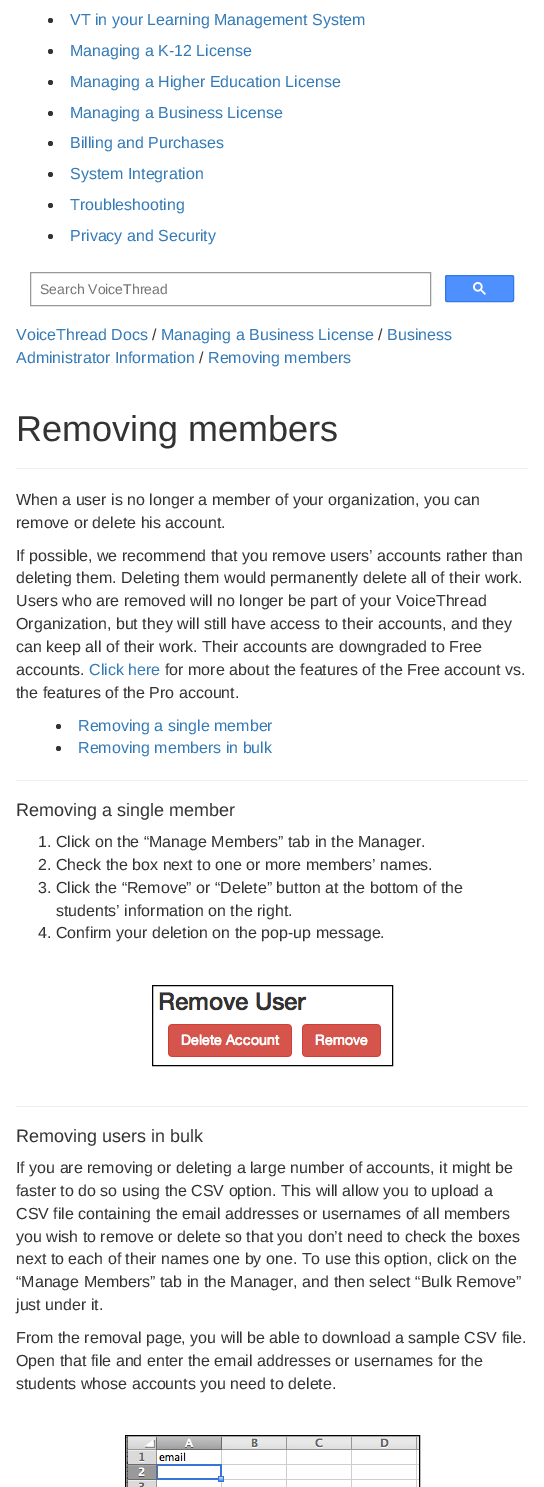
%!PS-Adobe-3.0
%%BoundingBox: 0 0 544 1487
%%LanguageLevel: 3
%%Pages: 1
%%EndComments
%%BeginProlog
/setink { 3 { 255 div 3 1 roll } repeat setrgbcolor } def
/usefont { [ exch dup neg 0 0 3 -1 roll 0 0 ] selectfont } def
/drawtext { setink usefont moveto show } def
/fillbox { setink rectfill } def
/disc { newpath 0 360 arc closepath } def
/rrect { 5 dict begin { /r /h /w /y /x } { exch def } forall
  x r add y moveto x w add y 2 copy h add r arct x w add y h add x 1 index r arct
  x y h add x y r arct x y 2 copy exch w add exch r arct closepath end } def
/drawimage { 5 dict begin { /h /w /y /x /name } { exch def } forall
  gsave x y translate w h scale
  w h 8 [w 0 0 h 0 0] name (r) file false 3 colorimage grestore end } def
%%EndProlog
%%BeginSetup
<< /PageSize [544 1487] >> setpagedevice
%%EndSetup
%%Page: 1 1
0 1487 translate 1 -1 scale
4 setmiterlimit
0 0 544 1487 255 255 255 fillbox
51 51 51 setink
50.5 20.5 2.5 disc fill
(VT in your Learning Management System) 70 25 /LiberationSans-Regular 16 51 122 183 drawtext
51 51 51 setink
50.5 51.5 2.5 disc fill
(Managing a K-12 License) 70 56 /LiberationSans-Regular 16 51 122 183 drawtext
51 51 51 setink
50.5 82.5 2.5 disc fill
(Managing a Higher Education License) 70 87 /LiberationSans-Regular 16 51 122 183 drawtext
51 51 51 setink
50.5 113.5 2.5 disc fill
(Managing a Business License) 70 118 /LiberationSans-Regular 16 51 122 183 drawtext
51 51 51 setink
50.5 143.5 2.5 disc fill
(Billing and Purchases) 70 148 /LiberationSans-Regular 16 51 122 183 drawtext
51 51 51 setink
50.5 174.5 2.5 disc fill
(System Integration) 70 179 /LiberationSans-Regular 16 51 122 183 drawtext
51 51 51 setink
50.5 205.5 2.5 disc fill
(Troubleshooting) 70 210 /LiberationSans-Regular 16 51 122 183 drawtext
51 51 51 setink
50.5 236.5 2.5 disc fill
(Privacy and Security) 70 241 /LiberationSans-Regular 16 51 122 183 drawtext
153 153 153 setink
30.5 272.5 400 33 rectstroke
(Search VoiceThread) 40 294 /LiberationSans-Regular 14 117 117 117 drawtext
77 144 254 setink
445.5 275.5 68 26 1.5 rrect gsave fill grestore
48 121 237 setink
stroke
(assets/img1.rgb) 473 282 13 13 drawimage
(VoiceThread Docs) 16 340 /LiberationSans-Regular 16 51 122 183 drawtext
(/) 152 340 /LiberationSans-Regular 16 51 51 51 drawtext
(Managing a Business License) 161 340 /LiberationSans-Regular 16 51 122 183 drawtext
(/) 378 340 /LiberationSans-Regular 16 51 51 51 drawtext
(Business) 387 340 /LiberationSans-Regular 16 51 122 183 drawtext
(Administrator Information) 16 363 /LiberationSans-Regular 16 51 122 183 drawtext
(/) 199 363 /LiberationSans-Regular 16 51 51 51 drawtext
(Removing members) 208 363 /LiberationSans-Regular 16 51 122 183 drawtext
16 468 512 1 238 238 238 fillbox
(Removing members) 16 441 /LiberationSans-Regular 36 51 51 51 drawtext
(When a user is no longer a member of your organization, you can) 16 505 /LiberationSans-Regular 16 51 51 51 drawtext
(remove or delete his account.) 16 528 /LiberationSans-Regular 16 51 51 51 drawtext
(If possible, we recommend that you remove users’ accounts rather than) 16 561 /LiberationSans-Regular 16 51 51 51 drawtext
(deleting them. Deleting them would permanently delete all of their work.) 16 583 /LiberationSans-Regular 16 51 51 51 drawtext
(Users who are removed will no longer be part of your VoiceThread) 16 606 /LiberationSans-Regular 16 51 51 51 drawtext
(Organization, but they will still have access to their accounts, and they) 16 629 /LiberationSans-Regular 16 51 51 51 drawtext
(can keep all of their work. Their accounts are downgraded to Free) 16 652 /LiberationSans-Regular 16 51 51 51 drawtext
(accounts.) 16 675 /LiberationSans-Regular 16 51 51 51 drawtext
(Click here) 89 675 /LiberationSans-Regular 16 51 122 183 drawtext
(for more about the features of the Free account vs.) 165 675 /LiberationSans-Regular 16 51 51 51 drawtext
(the features of the Pro account.) 16 698 /LiberationSans-Regular 16 51 51 51 drawtext
58.5 726.5 2.5 disc fill
(Removing a single member) 78 731 /LiberationSans-Regular 16 51 122 183 drawtext
51 51 51 setink
58.5 748.5 2.5 disc fill
(Removing members in bulk) 78 753 /LiberationSans-Regular 16 51 122 183 drawtext
16 780 512 1 238 238 238 fillbox
(Removing a single member) 16 816 /LiberationSans-Regular 18 51 51 51 drawtext
(1. Click on the “Manage Members” tab in the Manager.) 38 847 /LiberationSans-Regular 16 51 51 51 drawtext
(2. Check the box next to one or more members’ names.) 38 870 /LiberationSans-Regular 16 51 51 51 drawtext
(3. Click the “Remove” or “Delete” button at the bottom of the) 38 893 /LiberationSans-Regular 16 51 51 51 drawtext
(students’ information on the right.) 56 916 /LiberationSans-Regular 16 51 51 51 drawtext
(4. Confirm your deletion on the pop-up message.) 38 938 /LiberationSans-Regular 16 51 51 51 drawtext
0 0 0 setink
152.5 985.5 240 80 rectstroke
(assets/img2.rgb) 159 992 222 65 drawimage
16 1106 512 1 238 238 238 fillbox
(Removing users in bulk) 16 1142 /LiberationSans-Regular 18 51 51 51 drawtext
(If you are removing or deleting a large number of accounts, it might be) 16 1173 /LiberationSans-Regular 16 51 51 51 drawtext
(faster to do so using the CSV option. This will allow you to upload a) 16 1196 /LiberationSans-Regular 16 51 51 51 drawtext
(CSV file containing the email addresses or usernames of all members) 16 1219 /LiberationSans-Regular 16 51 51 51 drawtext
(you wish to remove or delete so that you don’t need to check the boxes) 16 1242 /LiberationSans-Regular 16 51 51 51 drawtext
(next to each of their names one by one. To use this option, click on the) 16 1264 /LiberationSans-Regular 16 51 51 51 drawtext
(“Manage Members” tab in the Manager, and then select “Bulk Remove”) 16 1287 /LiberationSans-Regular 16 51 51 51 drawtext
(just under it.) 16 1310 /LiberationSans-Regular 16 51 51 51 drawtext
(From the removal page, you will be able to download a sample CSV file.) 16 1343 /LiberationSans-Regular 16 51 51 51 drawtext
(Open that file and enter the email addresses or usernames for the) 16 1366 /LiberationSans-Regular 16 51 51 51 drawtext
(students whose accounts you need to delete.) 16 1389 /LiberationSans-Regular 16 51 51 51 drawtext
0 0 0 setink
125.5 1435.5 294 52 rectstroke
(assets/img3.rgb) 126 1436 293 51 drawimage
showpage
%%EOF
